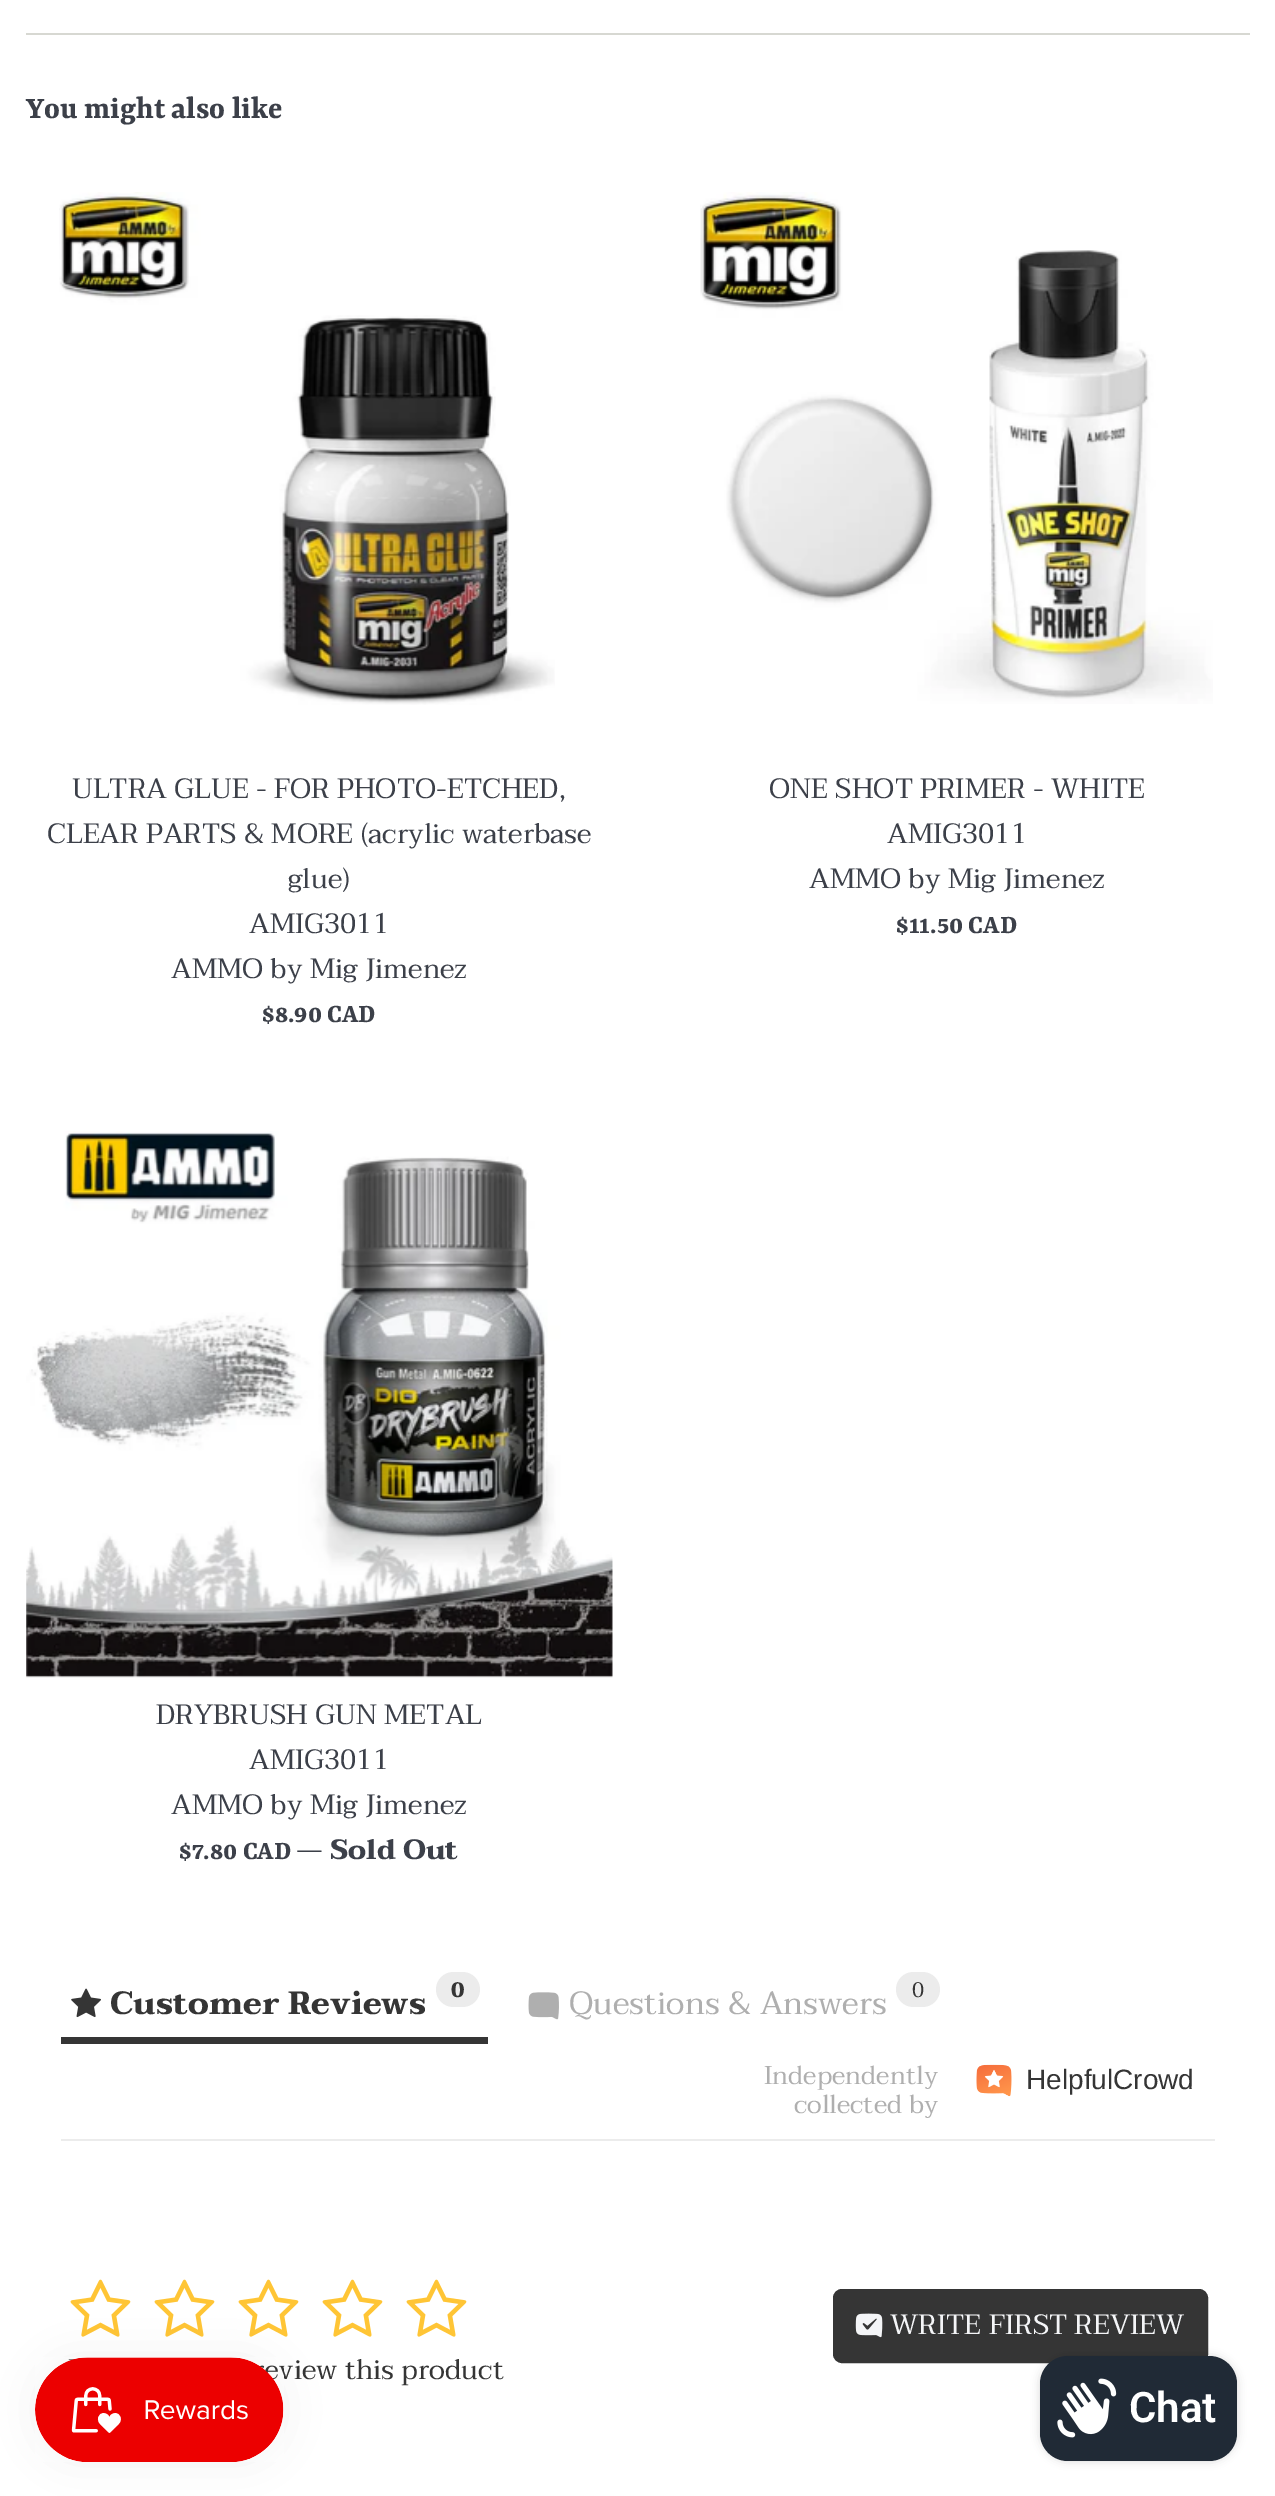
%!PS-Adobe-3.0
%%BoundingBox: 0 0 1275 2496
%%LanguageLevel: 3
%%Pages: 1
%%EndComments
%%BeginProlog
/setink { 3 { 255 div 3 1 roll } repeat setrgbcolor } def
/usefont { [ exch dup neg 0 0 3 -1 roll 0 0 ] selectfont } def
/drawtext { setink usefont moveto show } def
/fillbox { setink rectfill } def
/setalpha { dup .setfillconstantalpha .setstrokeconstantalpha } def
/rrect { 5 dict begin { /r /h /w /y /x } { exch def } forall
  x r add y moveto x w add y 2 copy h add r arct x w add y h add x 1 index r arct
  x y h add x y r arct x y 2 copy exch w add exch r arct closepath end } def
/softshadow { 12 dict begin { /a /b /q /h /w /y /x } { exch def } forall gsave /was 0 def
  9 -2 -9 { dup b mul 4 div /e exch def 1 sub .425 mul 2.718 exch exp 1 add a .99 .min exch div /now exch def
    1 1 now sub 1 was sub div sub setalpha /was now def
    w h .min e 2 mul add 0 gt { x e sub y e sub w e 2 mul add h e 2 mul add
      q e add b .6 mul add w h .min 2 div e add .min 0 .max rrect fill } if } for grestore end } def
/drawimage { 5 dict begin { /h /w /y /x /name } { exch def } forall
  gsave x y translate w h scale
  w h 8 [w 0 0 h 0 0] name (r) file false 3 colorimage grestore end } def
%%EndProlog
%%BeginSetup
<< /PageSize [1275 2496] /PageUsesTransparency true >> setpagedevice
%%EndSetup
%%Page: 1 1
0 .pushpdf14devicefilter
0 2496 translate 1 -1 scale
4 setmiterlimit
0 0 1275 2496 255 255 255 fillbox
26 33 1224 2 215 216 210 fillbox
(You might also like) 26 118 /Rasa-Bold 33.25 60 64 73 drawtext
(assets/img1.rgb) 59 192 496 513 drawimage
(ULTRA GLUE - FOR PHOTO-ETCHED,) 72 798 /Taviraj-Regular 28 60 64 73 drawtext
(CLEAR PARTS & MORE \(acrylic waterbase) 47 843 /Taviraj-Regular 28 60 64 73 drawtext
(glue\)) 288 888 /Taviraj-Regular 28 60 64 73 drawtext
(AMIG3011) 249 933 /Taviraj-Regular 28 60 64 73 drawtext
(AMMO by Mig Jimenez) 171 978 /Taviraj-Regular 28 60 64 73 drawtext
($8.90 CAD) 262 1022 /Rasa-Bold 28 60 64 73 drawtext
(assets/img2.rgb) 700 192 513 512 drawimage
(ONE SHOT PRIMER - WHITE) 769 798 /Taviraj-Regular 28 60 64 73 drawtext
(AMIG3011) 887 843 /Taviraj-Regular 28 60 64 73 drawtext
(AMMO by Mig Jimenez) 809 888 /Taviraj-Regular 28 60 64 73 drawtext
($11.50 CAD) 896 933 /Rasa-Bold 28 60 64 73 drawtext
(assets/img3.rgb) 26 1131 587 547 drawimage
(DRYBRUSH GUN METAL) 156 1724 /Taviraj-Regular 28 60 64 73 drawtext
(AMIG3011) 249 1769 /Taviraj-Regular 28 60 64 73 drawtext
(AMMO by Mig Jimenez) 171 1814 /Taviraj-Regular 28 60 64 73 drawtext
($7.80 CAD) 179 1859 /Rasa-Bold 28 60 64 73 drawtext
(—) 296 1859 /Taviraj-Regular 28 60 64 73 drawtext
(Sold Out) 330 1859 /Taviraj-Bold 28 60 64 73 drawtext
61 2139 1154 2 236 236 236 fillbox
61 2037 427 7 53 53 53 fillbox
(assets/img4.rgb) 71 1988 30 30 drawimage
(Customer Reviews) 110 2014 /Taviraj-Bold 32.25 53 53 53 drawtext
236 236 236 setink
436 1972 44 35 17.5 rrect fill
(0) 451 1997 /Taviraj-Bold 21 53 53 53 drawtext
(assets/img5.rgb) 528 1992 31 28 drawimage
(Questions & Answers) 569 2014 /Taviraj-Regular 32.25 175 175 175 drawtext
236 236 236 setink
896 1972 44 35 17.5 rrect fill
(0) 912 1997 /Taviraj-Regular 21 53 53 53 drawtext
(Independently) 764 2084 /Taviraj-Regular 25.75 175 175 175 drawtext
(collected by) 794 2113 /Taviraj-Regular 25.75 175 175 175 drawtext
(assets/img6.rgb) 976 2064 36 33 drawimage
(HelpfulCrowd) 1026 2089 /LiberationSans-Regular 28 53 53 53 drawtext
834 2290 373 72 8 rrect gsave fill grestore
2 setlinewidth
stroke
(assets/img7.rgb) 855 2313 28 25 drawimage
(WRITE FIRST REVIEW) 890 2334 /Taviraj-Regular 28 244 245 247 drawtext
(assets/img8.rgb) 70 2279 61 58 drawimage
(assets/img8.rgb) 154 2279 61 58 drawimage
(assets/img8.rgb) 238 2279 61 58 drawimage
(assets/img8.rgb) 322 2279 61 58 drawimage
(assets/img8.rgb) 406 2279 61 58 drawimage
(eview this product) 264 2379 /Taviraj-Regular 28 53 53 53 drawtext
0 0 0 setink
35 2357 249 105 52.5 22 0.05 softshadow
(assets/img9.rgb) 35 2357 249 105 drawimage
1040 2356 197 105 28 4.5 0.15 softshadow
32 42 54 setink
1040 2356 197 105 28 rrect fill
(assets/img10.rgb) 1057 2378 60 60 drawimage
(Chat) 1129 2422 /Roboto-SemiBold 42 255 255 255 drawtext
.poppdf14devicefilter showpage
%%EOF
